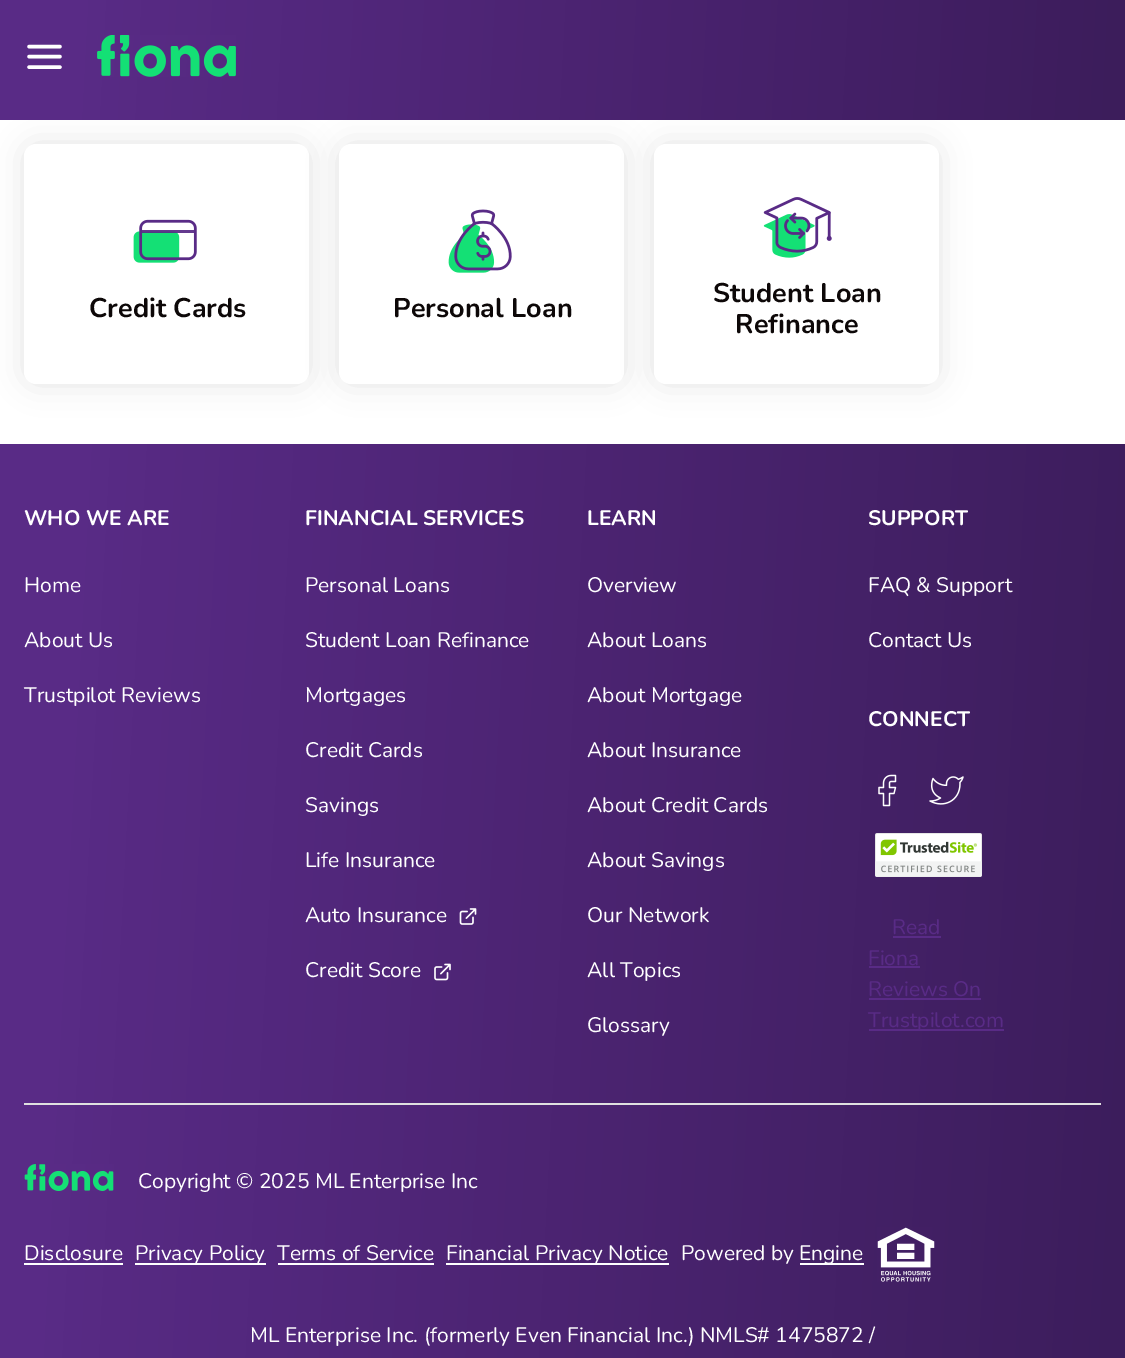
%!PS-Adobe-3.0
%%BoundingBox: 0 0 1125 1358
%%LanguageLevel: 3
%%Pages: 1
%%EndComments
%%BeginProlog
/setink { 3 { 255 div 3 1 roll } repeat setrgbcolor } def
/usefont { [ exch dup neg 0 0 3 -1 roll 0 0 ] selectfont } def
/drawtext { setink usefont moveto show } def
/fillbox { setink rectfill } def
/setalpha { dup .setfillconstantalpha .setstrokeconstantalpha } def
/rrect { 5 dict begin { /r /h /w /y /x } { exch def } forall
  x r add y moveto x w add y 2 copy h add r arct x w add y h add x 1 index r arct
  x y h add x y r arct x y 2 copy exch w add exch r arct closepath end } def
/softshadow { 12 dict begin { /a /b /q /h /w /y /x } { exch def } forall gsave /was 0 def
  9 -2 -9 { dup b mul 4 div /e exch def 1 sub .425 mul 2.718 exch exp 1 add a .99 .min exch div /now exch def
    1 1 now sub 1 was sub div sub setalpha /was now def
    w h .min e 2 mul add 0 gt { x e sub y e sub w e 2 mul add h e 2 mul add
      q e add b .6 mul add w h .min 2 div e add .min 0 .max rrect fill } if } for grestore end } def
/drawimage { 5 dict begin { /h /w /y /x /name } { exch def } forall
  gsave x y translate w h scale
  w h 8 [w 0 0 h 0 0] name (r) file false 3 colorimage grestore end } def
%%EndProlog
%%BeginSetup
<< /PageSize [1125 1358] /PageUsesTransparency true >> setpagedevice
%%EndSetup
%%Page: 1 1
0 .pushpdf14devicefilter
0 1358 translate 1 -1 scale
4 setmiterlimit
0 0 1125 1358 255 255 255 fillbox
69 69 69 setink
24 144 285 240 12 15 0.16 softshadow
255 255 255 setink
24 144 285 240 12 rrect fill
69 69 69 setink
339 144 285 240 12 15 0.16 softshadow
255 255 255 setink
339 144 285 240 12 rrect fill
69 69 69 setink
654 144 285 240 12 15 0.16 softshadow
gsave 0 0 moveto 1125 0 lineto 1125 120 lineto 0 120 lineto closepath clip newpath
<< /ShadingType 2 /ColorSpace /DeviceRGB /Coords [-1.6 30 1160 91] /Extend [true true] /Function << /FunctionType 3 /Domain [0 1] /Functions [<< /FunctionType 2 /Domain [0 1] /C0 [0.349 0.169 0.525] /C1 [0.349 0.169 0.525] /N 1 >> << /FunctionType 2 /Domain [0 1] /C0 [0.349 0.169 0.525] /C1 [0.231 0.11 0.353] /N 1 >>] /Bounds [0.07] /Encode [0 1 0 1] >> >> shfill grestore
255 255 255 setink
3.4 setlinewidth
1 setlinecap
1 setlinejoin
29 56.5 moveto 60 56.5 lineto 29 46.5 moveto 60 46.5 lineto 29 67 moveto 60 67 lineto stroke
(assets/img1.rgb) 97 35 139 42 drawimage
(assets/img2.rgb) 133 219 64 44 drawimage
(Credit Cards) 89 317 /Nunito-Bold 27 13 8 8 drawtext
(assets/img3.rgb) 448 209 64 64 drawimage
(Personal Loan) 393 317 /Nunito-Bold 27 13 8 8 drawtext
255 255 255 setink
654 144 285 240 12 rrect fill
(assets/img4.rgb) 763 197 69 61 drawimage
(Student Loan) 713 302 /Nunito-Bold 27 13 8 8 drawtext
(Refinance) 735 333 /Nunito-Bold 27 13 8 8 drawtext
gsave 0 444 moveto 1125 444 lineto 1125 1358 lineto 0 1358 lineto closepath clip newpath
<< /ShadingType 2 /ColorSpace /DeviceRGB /Coords [-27 962 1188 1026] /Extend [true true] /Function << /FunctionType 3 /Domain [0 1] /Functions [<< /FunctionType 2 /Domain [0 1] /C0 [0.349 0.169 0.525] /C1 [0.349 0.169 0.525] /N 1 >> << /FunctionType 2 /Domain [0 1] /C0 [0.349 0.169 0.525] /C1 [0.231 0.11 0.353] /N 1 >>] /Bounds [0.07] /Encode [0 1 0 1] >> >> shfill grestore
(WHO WE ARE) 24 525 /Nunito-Bold 21 255 255 255 drawtext
(Home) 24 592 /Nunito-Regular 21 255 255 255 drawtext
(About Us) 24 647 /Nunito-Regular 21 255 255 255 drawtext
(Trustpilot Reviews) 24 702 /Nunito-Regular 21 255 255 255 drawtext
(FINANCIAL SERVICES) 305 525 /Nunito-Bold 21 255 255 255 drawtext
(Personal Loans) 305 592 /Nunito-Regular 21 255 255 255 drawtext
(Student Loan Refinance) 305 647 /Nunito-Regular 21 255 255 255 drawtext
(Mortgages) 305 702 /Nunito-Regular 21 255 255 255 drawtext
(Credit Cards) 305 757 /Nunito-Regular 21 255 255 255 drawtext
(Savings) 305 812 /Nunito-Regular 21 255 255 255 drawtext
(Life Insurance) 305 867 /Nunito-Regular 21 255 255 255 drawtext
(Auto Insurance) 305 922 /Nunito-Regular 21 255 255 255 drawtext
(assets/img5.rgb) 459 908 18 17 drawimage
(Credit Score) 305 977 /Nunito-Regular 21 255 255 255 drawtext
(assets/img6.rgb) 434 963 17 18 drawimage
(LEARN) 587 525 /Nunito-Bold 21 255 255 255 drawtext
(Overview) 587 592 /Nunito-Regular 21 255 255 255 drawtext
(About Loans) 587 647 /Nunito-Regular 21 255 255 255 drawtext
(About Mortgage) 587 702 /Nunito-Regular 21 255 255 255 drawtext
(About Insurance) 587 757 /Nunito-Regular 21 255 255 255 drawtext
(About Credit Cards) 587 812 /Nunito-Regular 21 255 255 255 drawtext
(About Savings) 587 867 /Nunito-Regular 21 255 255 255 drawtext
(Our Network) 587 922 /Nunito-Regular 21 255 255 255 drawtext
(All Topics) 587 977 /Nunito-Regular 21 255 255 255 drawtext
(Glossary) 587 1032 /Nunito-Regular 21 255 255 255 drawtext
(SUPPORT) 868 525 /Nunito-Bold 21 255 255 255 drawtext
(FAQ & Support) 868 592 /Nunito-Regular 21 255 255 255 drawtext
(Contact Us) 868 647 /Nunito-Regular 21 255 255 255 drawtext
(CONNECT) 868 726 /Nunito-Bold 21 255 255 255 drawtext
(assets/img7.rgb) 878 774 19 33 drawimage
(assets/img8.rgb) 929 776 35 29 drawimage
(assets/img9.rgb) 875 833 107 44 drawimage
(Read) 892 934 /Nunito-Regular 21 89 43 134 drawtext
893 936 48 2 89 43 134 fillbox
(Fiona) 868 965 /Nunito-Regular 21 89 43 134 drawtext
869 966 51 2 89 43 134 fillbox
(Reviews On) 868 996 /Nunito-Regular 21 89 43 134 drawtext
869 998 112 2 89 43 134 fillbox
869 1029 135 2 89 43 134 fillbox
(Trustpilot.com) 868 1027 /Nunito-Regular 21 89 43 134 drawtext
24 1103 1077 2 224 224 224 fillbox
(assets/img10.rgb) 24 1164 90 27 drawimage
(Copyright © 2025 ML Enterprise Inc) 138 1188 /Nunito-Regular 21 255 255 255 drawtext
(Disclosure) 24 1260 /Nunito-Regular 21 255 255 255 drawtext
24 1263 99 2 255 255 255 fillbox
135 1263 131 2 255 255 255 fillbox
(Privacy Policy) 135 1260 /Nunito-Regular 21 255 255 255 drawtext
(Terms of Service) 277 1260 /Nunito-Regular 21 255 255 255 drawtext
278 1263 156 2 255 255 255 fillbox
446 1263 223 2 255 255 255 fillbox
(Financial Privacy Notice) 446 1260 /Nunito-Regular 21 255 255 255 drawtext
(Powered by) 681 1260 /Nunito-Regular 21 255 255 255 drawtext
800 1263 64 2 255 255 255 fillbox
(Engine) 799 1260 /Nunito-Regular 21 255 255 255 drawtext
(assets/img11.rgb) 877 1227 58 55 drawimage
(ML Enterprise Inc. \(formerly Even Financial Inc.\) NMLS# 1475872 /) 250 1342 /Nunito-Regular 21 255 255 255 drawtext
.poppdf14devicefilter showpage
%%EOF
